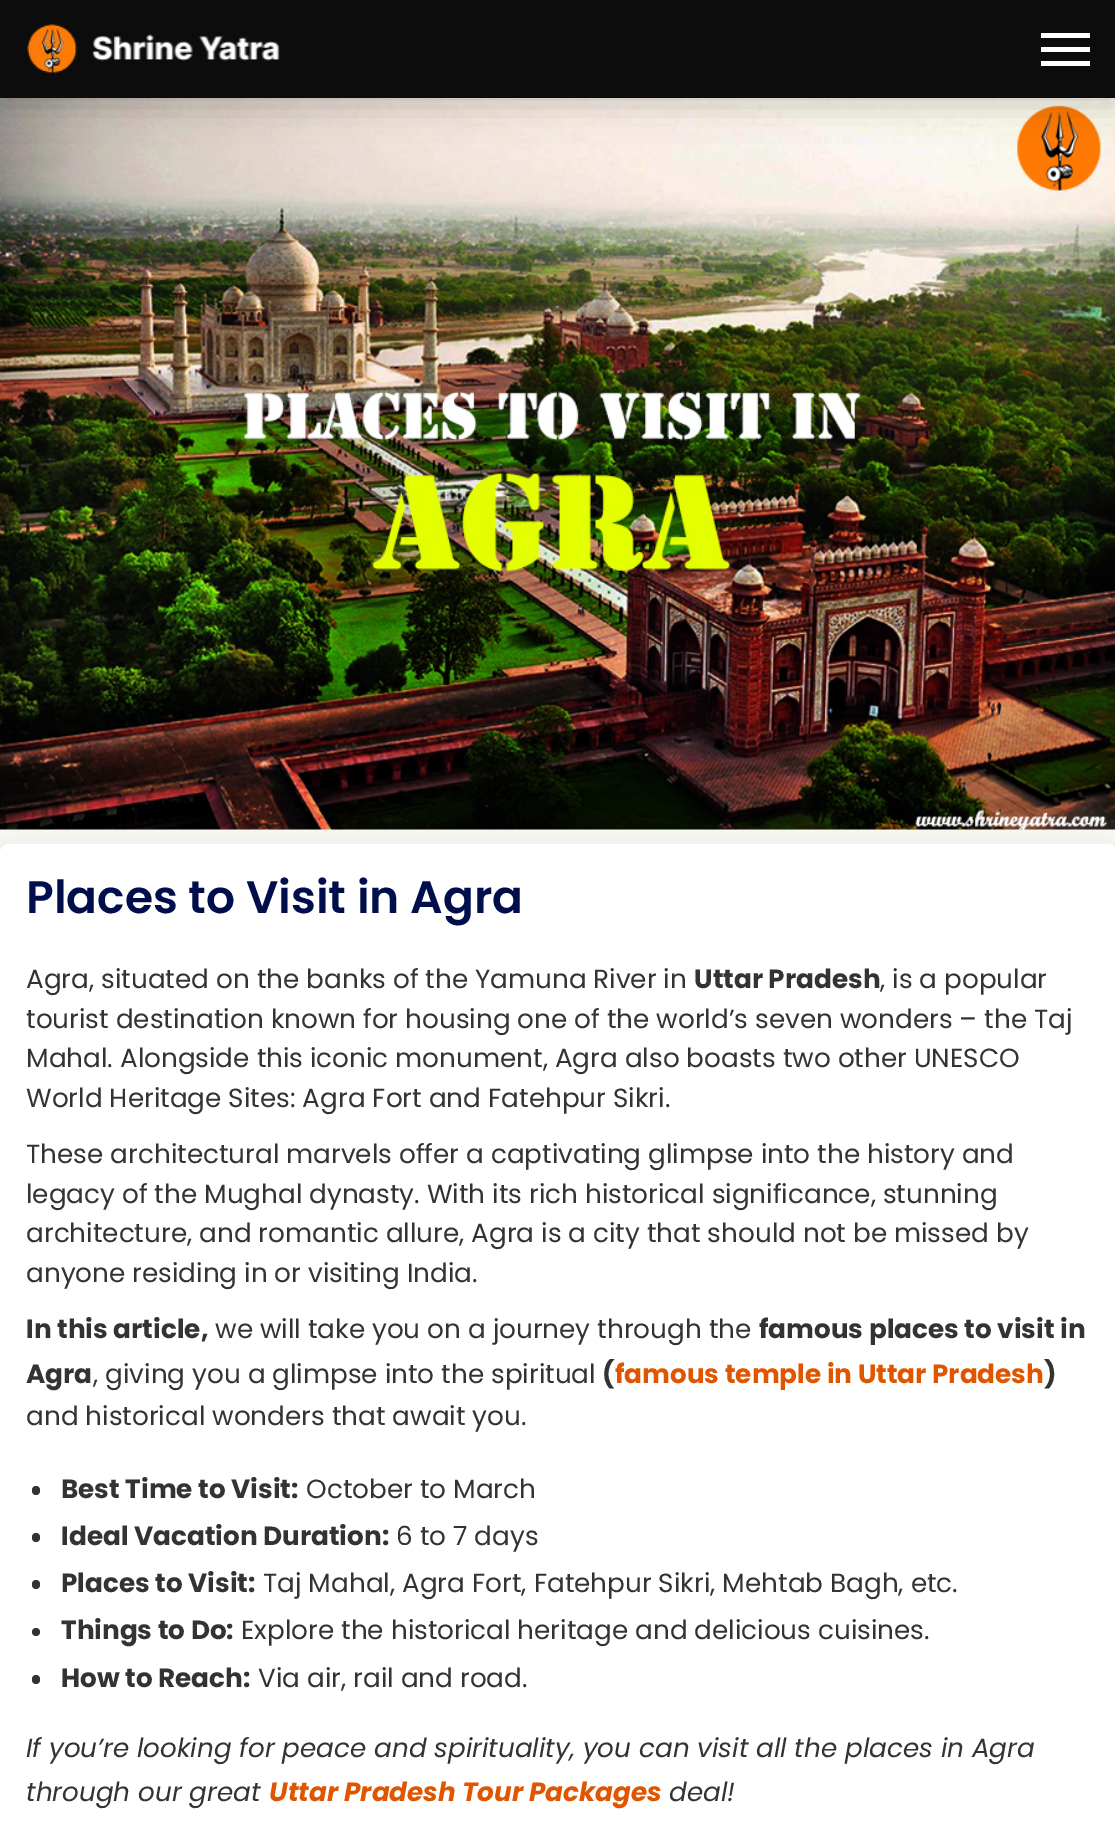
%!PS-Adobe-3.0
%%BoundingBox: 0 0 1115 1828
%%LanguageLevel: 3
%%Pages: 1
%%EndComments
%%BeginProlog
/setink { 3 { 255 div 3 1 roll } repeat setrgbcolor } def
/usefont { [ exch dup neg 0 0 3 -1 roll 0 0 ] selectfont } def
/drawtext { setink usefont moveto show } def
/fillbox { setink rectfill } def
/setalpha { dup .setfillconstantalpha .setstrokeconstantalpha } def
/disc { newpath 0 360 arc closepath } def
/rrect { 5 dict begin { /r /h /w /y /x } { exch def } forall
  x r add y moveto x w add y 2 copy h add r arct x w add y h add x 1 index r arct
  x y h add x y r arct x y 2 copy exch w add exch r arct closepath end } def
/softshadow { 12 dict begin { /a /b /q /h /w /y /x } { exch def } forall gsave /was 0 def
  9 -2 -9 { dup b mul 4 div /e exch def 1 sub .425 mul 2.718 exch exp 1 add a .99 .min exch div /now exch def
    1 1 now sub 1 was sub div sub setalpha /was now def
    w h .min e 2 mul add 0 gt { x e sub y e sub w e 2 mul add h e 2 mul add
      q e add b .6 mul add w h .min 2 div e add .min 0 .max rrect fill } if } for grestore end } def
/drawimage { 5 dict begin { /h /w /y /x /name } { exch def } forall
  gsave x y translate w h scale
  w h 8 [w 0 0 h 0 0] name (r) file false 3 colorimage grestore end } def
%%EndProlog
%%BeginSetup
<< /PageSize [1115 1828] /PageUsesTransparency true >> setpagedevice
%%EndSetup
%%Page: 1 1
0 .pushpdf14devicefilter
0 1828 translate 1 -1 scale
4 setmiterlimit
0 0 1115 1828 249 248 242 fillbox
(assets/img2.rgb) 0 98 1115 732 drawimage
0 0 0 setink
0 7 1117 98 0 17.5 0.2 softshadow
0 0 1115 98 12 12 12 fillbox
(assets/img1.rgb) 27 24 253 50 drawimage
1041 33 49 5 255 255 255 fillbox
1041 47 49 5 255 255 255 fillbox
1041 61 49 5 255 255 255 fillbox
0 0 0 setink
0 847 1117 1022 9 10.5 0.08 softshadow
255 255 255 setink
0 844 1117 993 9 rrect fill
(Places to Visit in Agra) 26 913 /Poppins-SemiBold 45.5 0 15 76 drawtext
(Agra, situated on the banks of the Yamuna River in) 26 988 /Poppins-Regular 26.25 51 51 51 drawtext
(Uttar Pradesh) 694 988 /Poppins-Bold 26.25 51 51 51 drawtext
(, is a popular) 880 988 /Poppins-Regular 26.25 51 51 51 drawtext
(tourist destination known for housing one of the world’s seven wonders – the Taj) 26 1028 /Poppins-Regular 26.25 51 51 51 drawtext
(Mahal. Alongside this iconic monument, Agra also boasts two other UNESCO) 26 1067 /Poppins-Regular 26.25 51 51 51 drawtext
(World Heritage Sites: Agra Fort and Fatehpur Sikri.) 26 1107 /Poppins-Regular 26.25 51 51 51 drawtext
(These architectural marvels offer a captivating glimpse into the history and) 26 1163 /Poppins-Regular 26.25 51 51 51 drawtext
(legacy of the Mughal dynasty. With its rich historical significance, stunning) 26 1203 /Poppins-Regular 26.25 51 51 51 drawtext
(architecture, and romantic allure, Agra is a city that should not be missed by) 26 1242 /Poppins-Regular 26.25 51 51 51 drawtext
(anyone residing in or visiting India.) 26 1282 /Poppins-Regular 26.25 51 51 51 drawtext
(In this article,) 26 1338 /Poppins-Bold 26.25 51 51 51 drawtext
(we will take you on a journey through the) 215 1338 /Poppins-Regular 26.25 51 51 51 drawtext
(famous places to visit in) 759 1338 /Poppins-Bold 26.25 51 51 51 drawtext
(Agra) 26 1383 /Poppins-Bold 26.25 51 51 51 drawtext
(, giving you a glimpse into the spiritual) 93 1383 /Poppins-Regular 26.25 51 51 51 drawtext
(\() 602 1383 /Poppins-Bold 26.25 51 51 51 drawtext
(famous temple in Uttar Pradesh) 615 1383 /Poppins-Bold 26.25 223 85 0 drawtext
(\)) 1044 1383 /Poppins-Bold 26.25 51 51 51 drawtext
(and historical wonders that await you.) 26 1425 /Poppins-Regular 26.25 51 51 51 drawtext
32 1486 8 9 4 rrect fill
(Best Time to Visit:) 61 1498 /Poppins-Bold 26.25 51 51 51 drawtext
(October to March) 306 1498 /Poppins-Regular 26.25 51 51 51 drawtext
32 1533 8 9 4 rrect fill
(Ideal Vacation Duration:) 61 1545 /Poppins-Bold 26.25 51 51 51 drawtext
(6 to 7 days) 396 1545 /Poppins-Regular 26.25 51 51 51 drawtext
32 1580 8 9 4 rrect fill
(Places to Visit:) 61 1592 /Poppins-Bold 26.25 51 51 51 drawtext
(Taj Mahal, Agra Fort, Fatehpur Sikri, Mehtab Bagh, etc.) 263 1592 /Poppins-Regular 26.25 51 51 51 drawtext
36 1632 4 disc fill
(Things to Do:) 61 1639 /Poppins-Bold 26.25 51 51 51 drawtext
(Explore the historical heritage and delicious cuisines.) 241 1639 /Poppins-Regular 26.25 51 51 51 drawtext
32 1675 8 9 4 rrect fill
(How to Reach:) 61 1687 /Poppins-Bold 26.25 51 51 51 drawtext
(Via air, rail and road.) 258 1687 /Poppins-Regular 26.25 51 51 51 drawtext
(If you’re looking for peace and spirituality, you can visit all the places in Agra) 26 1757 /Poppins-Italic 26.25 51 51 51 drawtext
(through our great) 26 1801 /Poppins-Italic 26.25 51 51 51 drawtext
(Uttar Pradesh Tour Packages) 269 1801 /Poppins-BoldItalic 26.25 223 85 0 drawtext
(deal!) 669 1801 /Poppins-Italic 26.25 51 51 51 drawtext
.poppdf14devicefilter showpage
%%EOF
